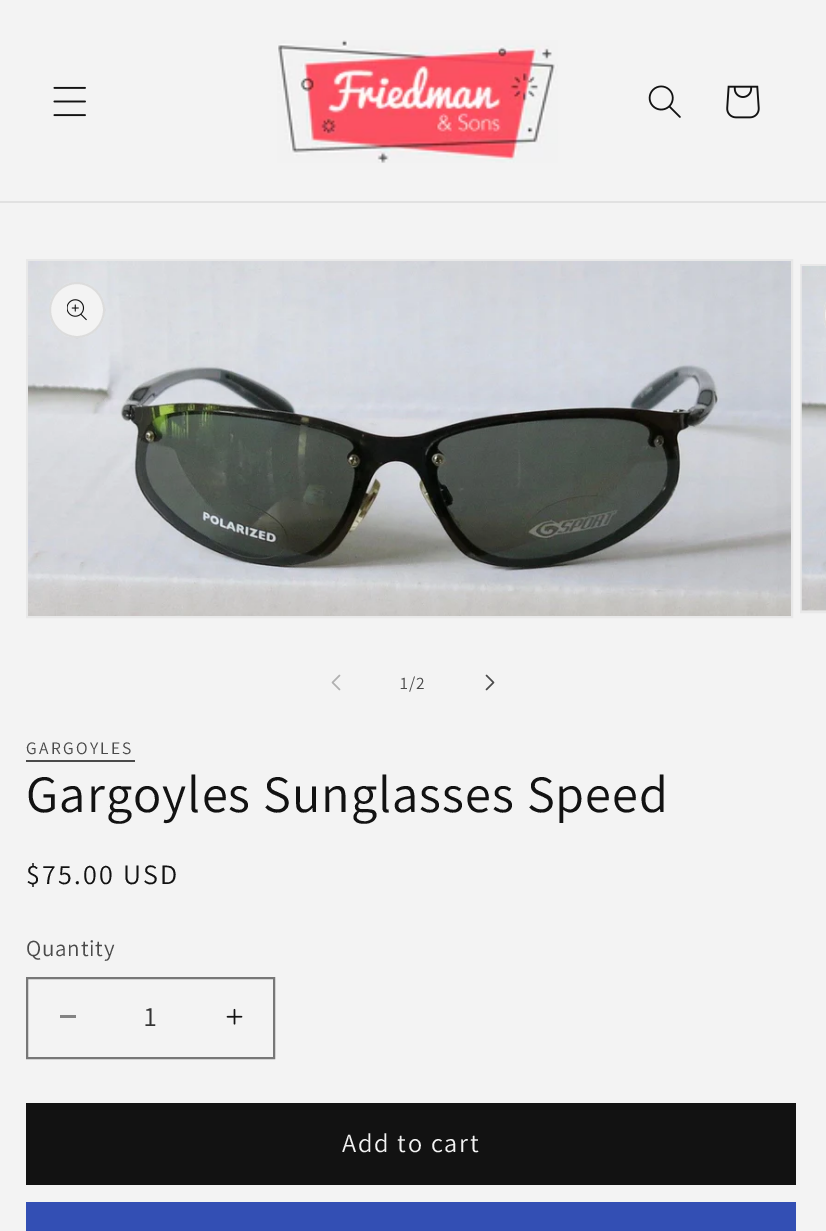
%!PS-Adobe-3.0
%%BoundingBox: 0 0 826 1231
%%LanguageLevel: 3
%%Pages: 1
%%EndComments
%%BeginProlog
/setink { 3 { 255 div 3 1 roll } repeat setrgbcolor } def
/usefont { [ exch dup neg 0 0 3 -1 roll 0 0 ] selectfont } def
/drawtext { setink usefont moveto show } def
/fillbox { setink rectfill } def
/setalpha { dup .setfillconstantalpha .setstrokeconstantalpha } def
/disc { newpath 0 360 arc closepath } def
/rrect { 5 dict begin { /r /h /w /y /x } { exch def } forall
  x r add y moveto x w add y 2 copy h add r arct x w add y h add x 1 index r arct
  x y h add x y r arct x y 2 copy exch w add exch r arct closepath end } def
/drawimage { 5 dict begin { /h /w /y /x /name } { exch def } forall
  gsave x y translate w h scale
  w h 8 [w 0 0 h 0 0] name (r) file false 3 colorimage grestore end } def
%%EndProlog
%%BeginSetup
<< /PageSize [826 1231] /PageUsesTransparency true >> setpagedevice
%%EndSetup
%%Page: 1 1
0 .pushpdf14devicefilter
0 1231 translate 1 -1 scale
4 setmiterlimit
0 0 826 1231 243 243 243 fillbox
0 201 826 2 225 225 225 fillbox
(assets/img1.rgb) 53 86 33 31 drawimage
(assets/img2.rgb) 277 40 281 123 drawimage
(assets/img3.rgb) 648 85 33 33 drawimage
(assets/img4.rgb) 726 85 34 34 drawimage
232 232 232 setink
2 setlinewidth
27 260 765 357 rectstroke
(assets/img5.rgb) 28 261 763 355 drawimage
243 243 243 setink
77 310 28 disc fill
0.1 setalpha
18 18 18 setink
77 310 27 disc stroke
1 setalpha
(assets/img6.rgb) 67 299 20 22 drawimage
232 232 232 setink
801 265 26 347 rectstroke
(assets/img7.rgb) 801 266 25 345 drawimage
243 243 243 setink
851 287 moveto 826 287 lineto 826 343 lineto 851 343 lineto 835.5 343 823 330.5 823 315 curveto 823 299.5 835.5 287 851 287 curveto closepath fill
0.1 setalpha
18 18 18 setink
824 288 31 54 27 rrect stroke
1 setalpha
(assets/img8.rgb) 331 674 10 17 drawimage
/Assistant-Regular 17.5 usefont
74 74 74 setink
400 689 moveto 1 0 (1/2) ashow
(assets/img9.rgb) 485 674 10 17 drawimage
26 754 moveto 2.25 0 (GARGOYLES) ashow
26 760 109 2 74 74 74 fillbox
/Assistant-Regular 52.5 usefont
18 18 18 setink
26 812 moveto 1.05 0 (Gargoyles Sunglasses Speed) ashow
/Assistant-Regular 28 usefont
26 884 moveto 2.25 0 ($75.00 USD) ashow
/Assistant-Regular 23 usefont
74 74 74 setink
26 956 moveto 0.75 0 (Quantity) ashow
60 1015 16 3 131 131 131 fillbox
(assets/img10.rgb) 226 1008 17 17 drawimage
119 119 119 setink
27 978 247 80 rectstroke
(1) 144 1026 /Assistant-Regular 28 52 52 52 drawtext
26 1103 770 82 18 18 18 fillbox
/Assistant-Regular 26.25 usefont
243 243 243 setink
342 1152 moveto 1.75 0 (Add to cart) ashow
26 1202 770 29 51 79 180 fillbox
.poppdf14devicefilter showpage
%%EOF
